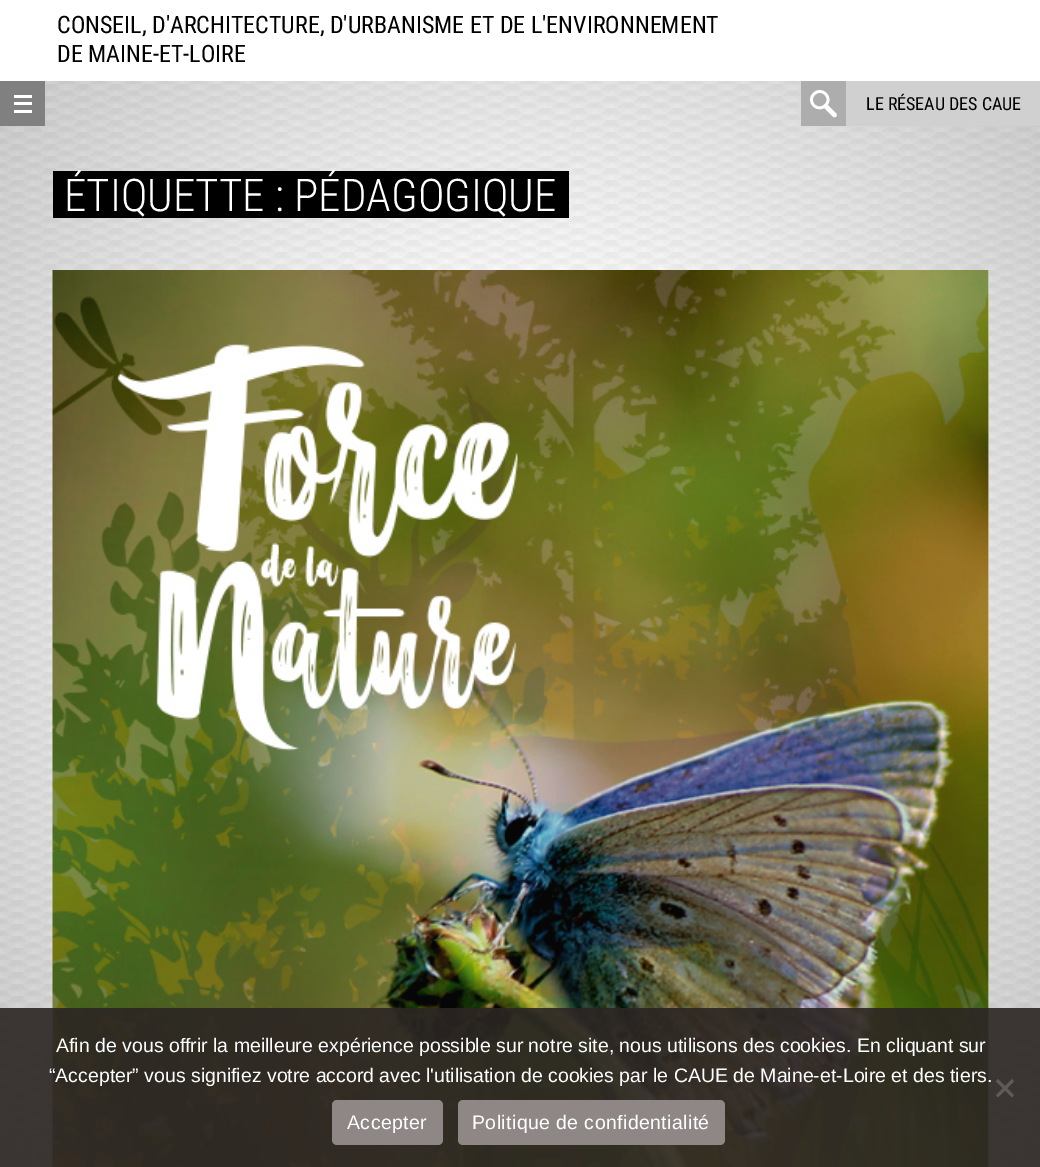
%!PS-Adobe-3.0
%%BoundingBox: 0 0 1040 1167
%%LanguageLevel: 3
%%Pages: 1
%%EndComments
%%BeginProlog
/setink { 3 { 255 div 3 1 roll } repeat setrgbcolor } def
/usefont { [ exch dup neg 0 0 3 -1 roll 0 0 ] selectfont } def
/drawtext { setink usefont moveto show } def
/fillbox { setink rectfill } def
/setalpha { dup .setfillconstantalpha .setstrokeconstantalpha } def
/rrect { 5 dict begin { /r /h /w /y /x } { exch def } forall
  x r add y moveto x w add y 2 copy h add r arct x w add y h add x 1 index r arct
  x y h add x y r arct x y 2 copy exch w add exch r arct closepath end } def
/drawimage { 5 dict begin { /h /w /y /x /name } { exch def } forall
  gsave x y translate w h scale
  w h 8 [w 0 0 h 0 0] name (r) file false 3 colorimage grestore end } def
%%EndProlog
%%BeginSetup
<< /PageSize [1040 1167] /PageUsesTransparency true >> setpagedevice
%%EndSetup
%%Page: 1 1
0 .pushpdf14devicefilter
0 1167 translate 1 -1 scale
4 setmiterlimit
0 0 1040 1167 255 255 255 fillbox
gsave 0 81 moveto 1040 81 lineto 1040 1167 lineto 0 1167 lineto closepath clip newpath 521 584 translate 736 825 scale
<< /ShadingType 3 /ColorSpace /DeviceRGB /Coords [0 0 0 0 0 1] /Extend [true true] /Function << /FunctionType 3 /Domain [0 1] /Functions [<< /FunctionType 2 /Domain [0 1] /C0 [1 1 1] /C1 [1 1 1] /N 1 >> << /FunctionType 2 /Domain [0 1] /C0 [1 1 1] /C1 [0.6 0.6 0.6] /N 1 >>] /Bounds [0.33] /Encode [0 1 0 1] >> >> shfill grestore
(assets/img1.rgb) 0 81 1040 1086 drawimage
(CONSEIL, D'ARCHITECTURE, D'URBANISME ET DE L'ENVIRONNEMENT) 57 33 /RobotoCondensed-Regular 24 0 0 0 drawtext
(DE MAINE-ET-LOIRE) 57 62 /RobotoCondensed-Regular 24 0 0 0 drawtext
0 81 45 45 128 128 128 fillbox
14 102 18 3 255 255 255 fillbox
14 95 18 3 255 255 255 fillbox
14 110 18 3 255 255 255 fillbox
801 81 45 45 173 173 173 fillbox
255 255 255 setink
2.7 setlinewidth
825.5 94 moveto 833.5 101.5 821.5 113 814 105.5 curveto 806 98 818 86 825.5 94 curveto closepath stroke
4.5 setlinewidth
1 setlinecap
834.5 115 moveto 826 106.5 lineto stroke
846 81 194 45 209 208 208 fillbox
(LE RÉSEAU DES CAUE) 866 110 /RobotoCondensed-Regular 18 0 0 0 drawtext
53 171 516 47 0 0 0 fillbox
(ÉTIQUETTE : PÉDAGOGIQUE) 64 211 /RobotoCondensed-Light 45 255 255 255 drawtext
0.97 setalpha
53 270 936 897 255 255 255 fillbox
1 setalpha
(assets/img2.rgb) 52 270 937 897 drawimage
0.9 setalpha
0 1008 1040 159 43 37 35 fillbox
1 setalpha
(Afin de vous offrir la meilleure expérience possible sur notre site, nous utilisons des cookies. En cliquant sur) 56 1052 /LiberationSans-Regular 19.5 255 255 255 drawtext
(“Accepter” vous signifiez votre accord avec l'utilisation de cookies par le CAUE de Maine-et-Loire et des tiers.) 49 1082 /LiberationSans-Regular 19.5 255 255 255 drawtext
93 91 90 setink
1012 1079 moveto 1014 1081.5 lineto 998 1097.5 lineto 996 1095 lineto closepath fill
996 1081.5 moveto 998 1079 lineto 1014 1095 lineto 1012 1097.5 lineto closepath fill
142 135 134 setink
332 1100 111 45 5 rrect fill
255 255 255 setink
347 1129 moveto 0.4 0 (Accepter) ashow
142 135 134 setink
458 1100 267 45 5 rrect fill
255 255 255 setink
472 1129 moveto 0.4 0 (Politique de confidentialité) ashow
.poppdf14devicefilter showpage
%%EOF
